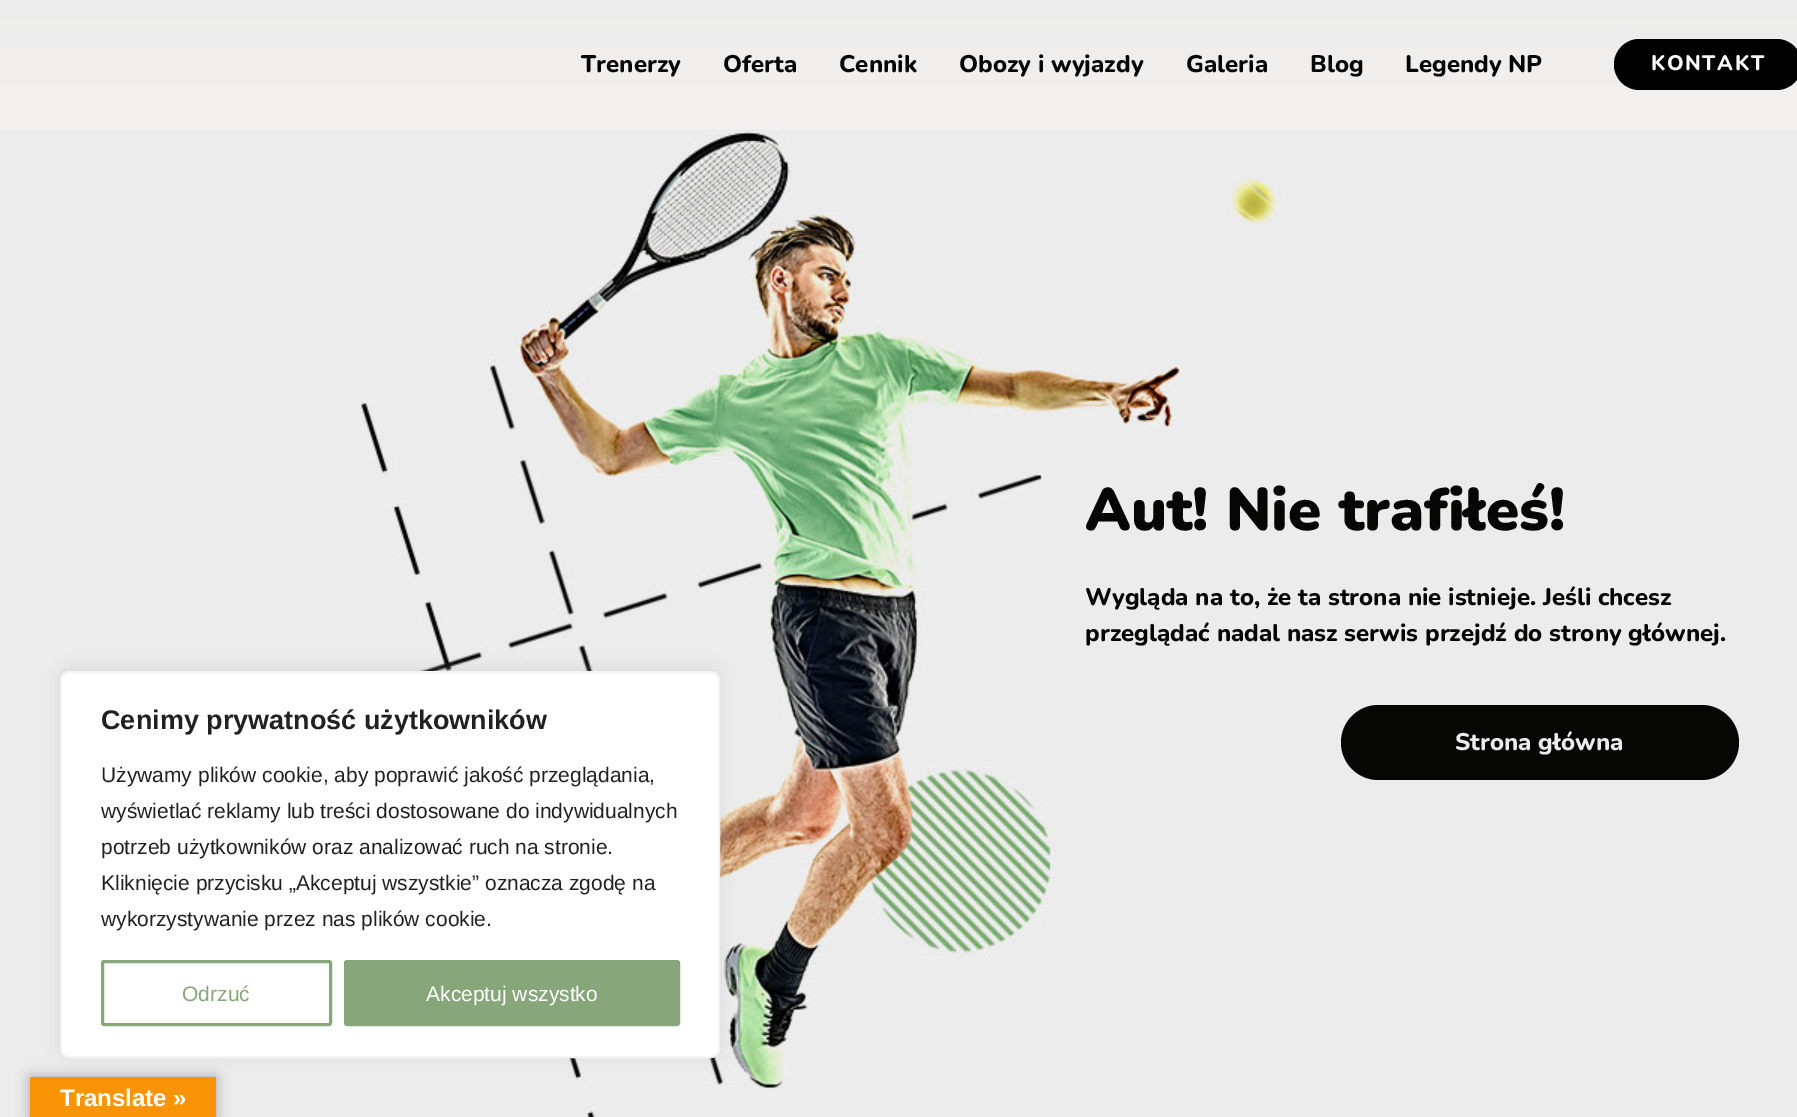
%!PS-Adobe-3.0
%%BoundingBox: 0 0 1797 1117
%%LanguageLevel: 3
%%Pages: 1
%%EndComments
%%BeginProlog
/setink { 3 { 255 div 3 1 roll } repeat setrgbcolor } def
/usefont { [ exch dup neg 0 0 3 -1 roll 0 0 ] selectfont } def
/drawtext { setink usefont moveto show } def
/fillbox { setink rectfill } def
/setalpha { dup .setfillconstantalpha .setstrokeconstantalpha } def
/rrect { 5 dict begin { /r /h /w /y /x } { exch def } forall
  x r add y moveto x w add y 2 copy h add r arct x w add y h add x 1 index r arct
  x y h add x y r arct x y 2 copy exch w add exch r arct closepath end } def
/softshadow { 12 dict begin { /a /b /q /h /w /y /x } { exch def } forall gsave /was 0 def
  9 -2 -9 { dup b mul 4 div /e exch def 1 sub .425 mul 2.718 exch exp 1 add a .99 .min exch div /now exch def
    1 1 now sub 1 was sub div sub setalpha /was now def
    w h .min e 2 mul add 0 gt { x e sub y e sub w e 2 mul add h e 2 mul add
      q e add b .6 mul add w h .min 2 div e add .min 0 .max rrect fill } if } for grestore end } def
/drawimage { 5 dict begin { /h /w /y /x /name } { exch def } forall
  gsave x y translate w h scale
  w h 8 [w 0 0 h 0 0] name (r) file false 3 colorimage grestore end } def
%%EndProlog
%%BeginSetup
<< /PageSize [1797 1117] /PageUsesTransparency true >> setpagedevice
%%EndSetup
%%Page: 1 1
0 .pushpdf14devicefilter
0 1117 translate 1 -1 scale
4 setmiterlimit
0 0 1797 1117 255 255 255 fillbox
gsave 0 0 moveto 1797 0 lineto 1797 129 lineto 0 129 lineto closepath clip newpath
<< /ShadingType 2 /ColorSpace /DeviceRGB /Coords [899 0 899 129] /Extend [true true] /Function << /FunctionType 2 /Domain [0 1] /C0 [0.925 0.925 0.925] /C1 [0.957 0.949 0.941] /N 1 >> >> shfill grestore
(Trenerzy) 581 72 /Nunito-ExtraBold 24 6 6 4 drawtext
(Oferta) 723 72 /Nunito-ExtraBold 24 6 6 4 drawtext
(Cennik) 839 72 /Nunito-ExtraBold 24 6 6 4 drawtext
(Obozy i wyjazdy) 959 72 /Nunito-ExtraBold 24 6 6 4 drawtext
(Galeria) 1186 72 /Nunito-ExtraBold 24 6 6 4 drawtext
(Blog) 1310 72 /Nunito-ExtraBold 24 6 6 4 drawtext
(Legendy NP) 1405 72 /Nunito-ExtraBold 24 6 6 4 drawtext
0 0 0 setink
1614 39 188 51 25.5 rrect fill
/Nunito-ExtraBold 21 usefont
255 255 255 setink
1651 70 moveto 1.5 0 (KONTAKT) ashow
(assets/img1.rgb) 0 129 1797 988 drawimage
(Aut! Nie trafiłeś!) 1085 530 /Nunito-Black 60 6 6 4 drawtext
(Wygląda na to, że ta strona nie istnieje. Jeśli chcesz) 1085 605 /Nunito-ExtraBold 24 6 6 4 drawtext
(przeglądać nadal nasz serwis przejdź do strony głównej.) 1085 641 /Nunito-ExtraBold 24 6 6 4 drawtext
1341 705 398 75 37.5 rrect fill
(Strona główna) 1455 750 /Nunito-ExtraBold 24 236 236 236 drawtext
0 0 0 setink
30 1077 186 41 0 7 0.3 softshadow
30 1077 186 40 248 148 6 fillbox
172 171 171 setink
60 669 660 387 9 7.5 0.3 softshadow
255 255 255 setink
61 672 658 385 8 rrect gsave fill grestore
244 244 244 setink
2 setlinewidth
stroke
(Cenimy prywatność użytkowników) 101 729 /LiberationSans-Bold 27 33 33 33 drawtext
(Używamy plików cookie, aby poprawić jakość przeglądania,) 101 782 /LiberationSans-Regular 21 33 33 33 drawtext
(wyświetlać reklamy lub treści dostosowane do indywidualnych) 101 818 /LiberationSans-Regular 21 33 33 33 drawtext
(potrzeb użytkowników oraz analizować ruch na stronie.) 101 854 /LiberationSans-Regular 21 33 33 33 drawtext
(Kliknięcie przycisku „Akceptuj wszystkie” oznacza zgodę na) 101 890 /LiberationSans-Regular 21 33 33 33 drawtext
(wykorzystywanie przez nas plików cookie.) 101 926 /LiberationSans-Regular 21 33 33 33 drawtext
135 167 122 setink
3 setlinewidth
102.5 961.5 228 63 1.5 rrect stroke
(Odrzuć) 182 1001 /LiberationSans-Regular 21 135 167 122 drawtext
345.5 961.5 333 63 1.5 rrect gsave fill grestore
stroke
(Akceptuj wszystko) 426 1001 /LiberationSans-Regular 21 255 255 255 drawtext
(Translate ») 60 1106 /LiberationSans-Bold 24 255 255 255 drawtext
.poppdf14devicefilter showpage
%%EOF
